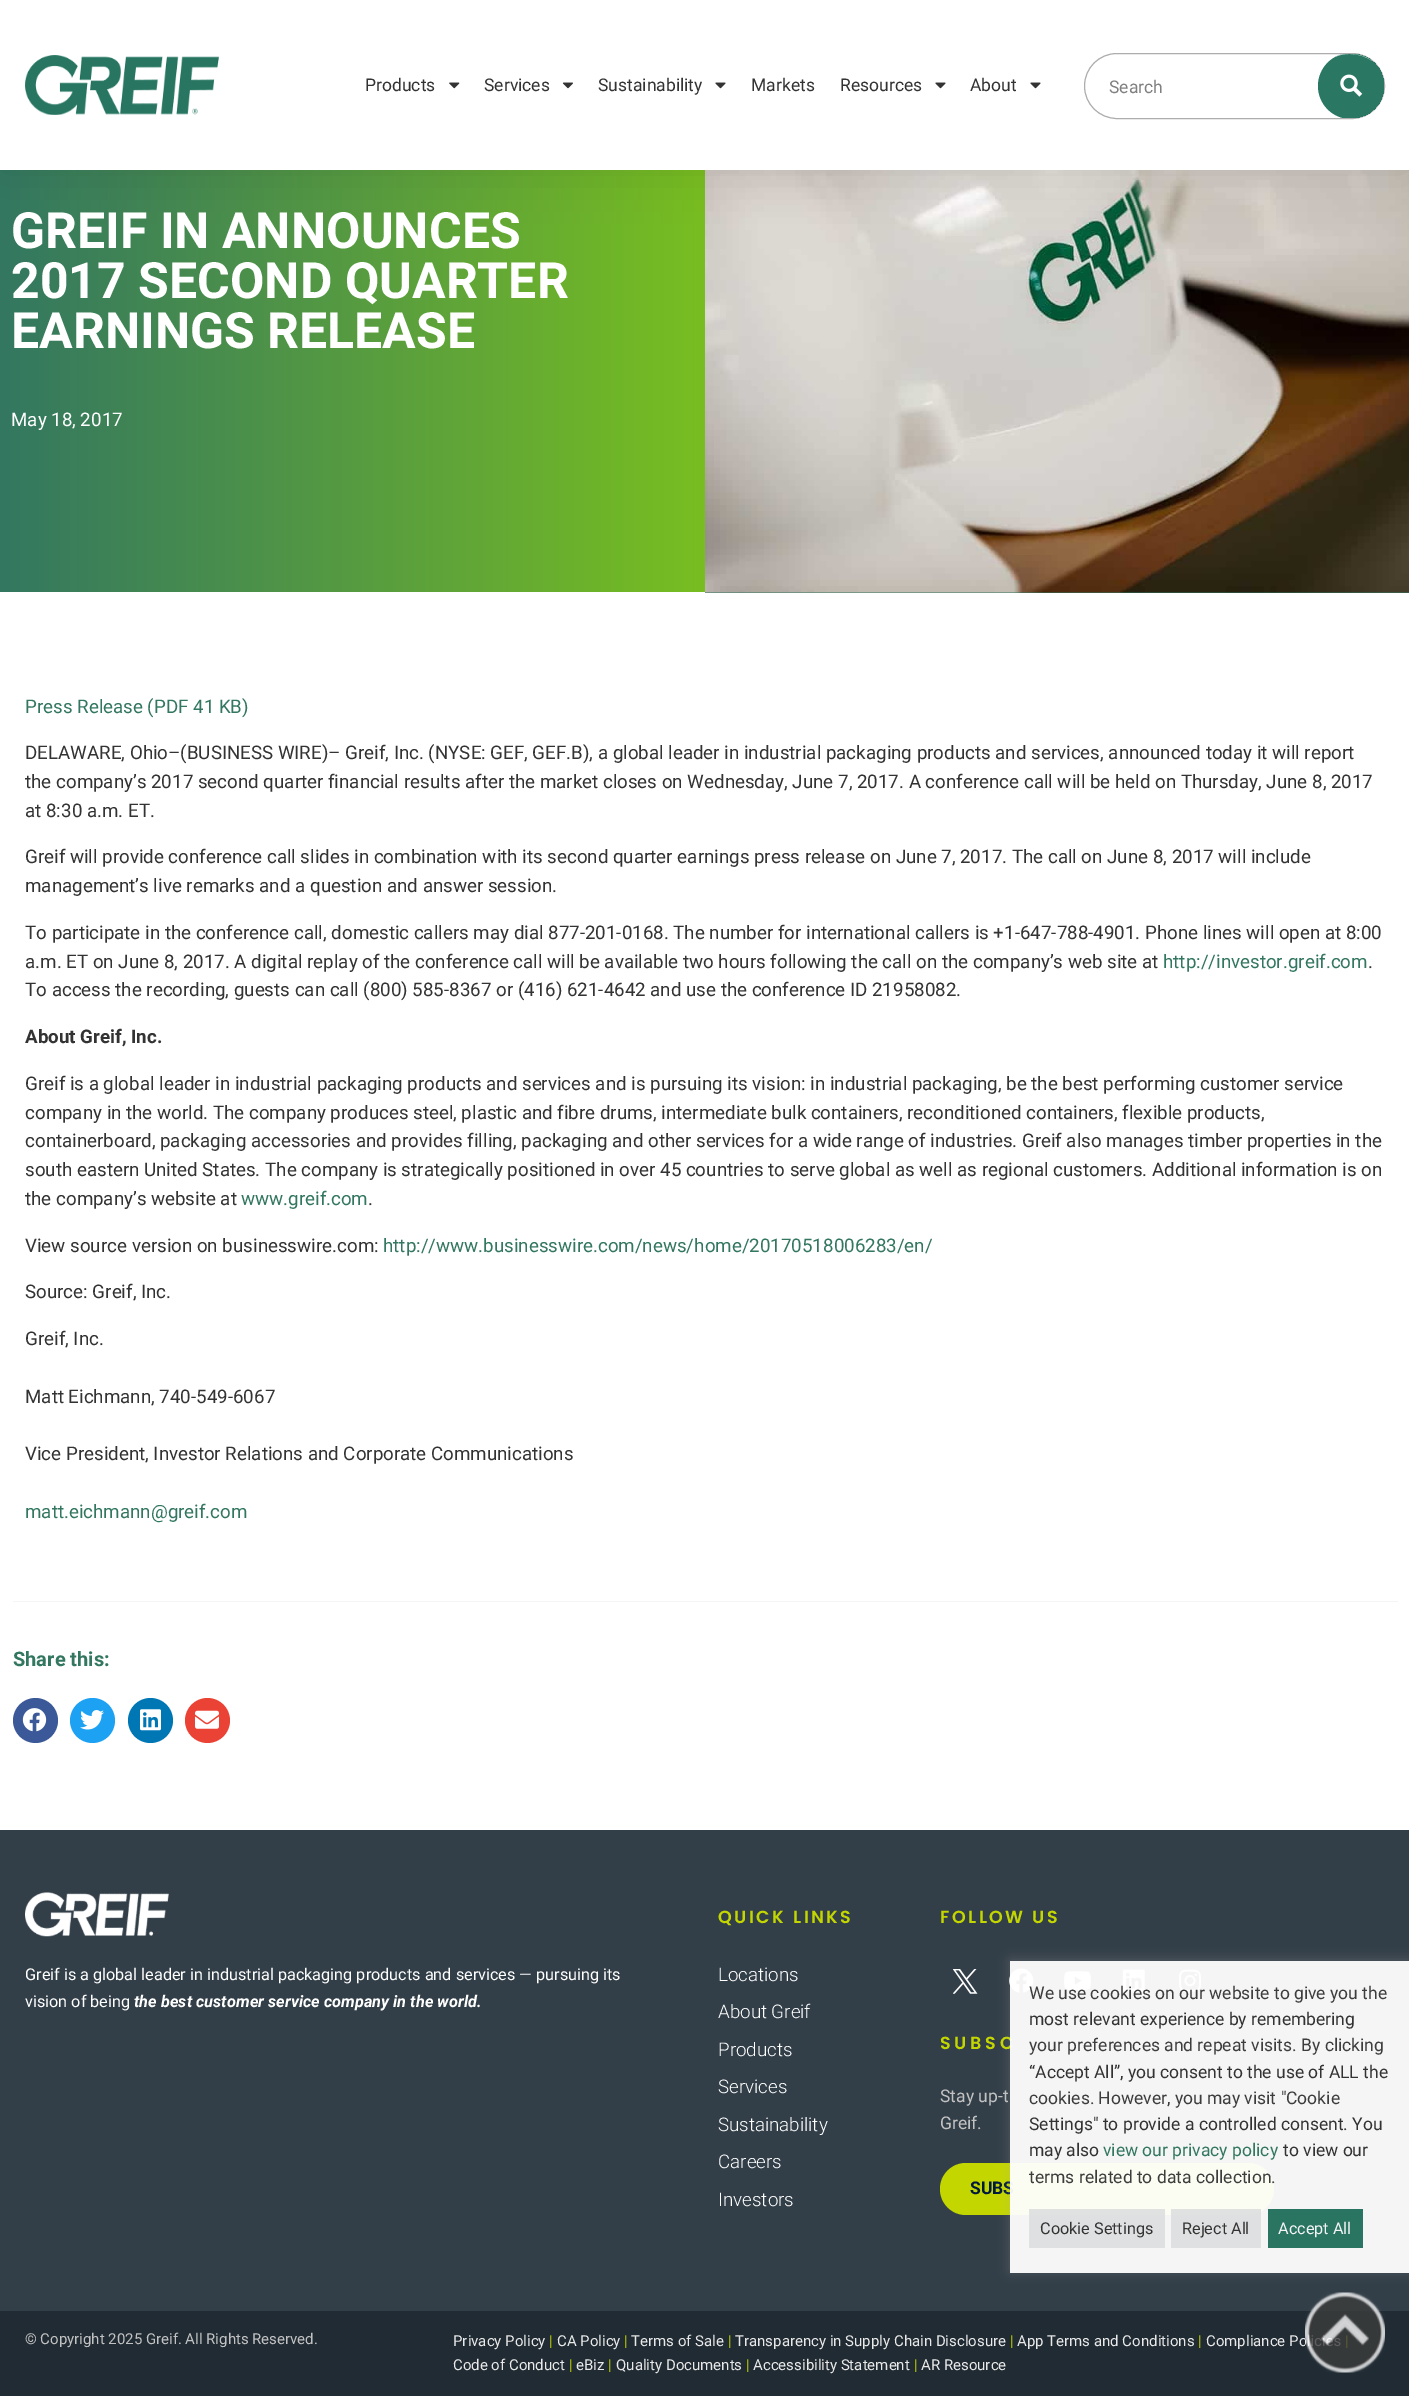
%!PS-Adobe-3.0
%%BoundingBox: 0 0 1409 2397
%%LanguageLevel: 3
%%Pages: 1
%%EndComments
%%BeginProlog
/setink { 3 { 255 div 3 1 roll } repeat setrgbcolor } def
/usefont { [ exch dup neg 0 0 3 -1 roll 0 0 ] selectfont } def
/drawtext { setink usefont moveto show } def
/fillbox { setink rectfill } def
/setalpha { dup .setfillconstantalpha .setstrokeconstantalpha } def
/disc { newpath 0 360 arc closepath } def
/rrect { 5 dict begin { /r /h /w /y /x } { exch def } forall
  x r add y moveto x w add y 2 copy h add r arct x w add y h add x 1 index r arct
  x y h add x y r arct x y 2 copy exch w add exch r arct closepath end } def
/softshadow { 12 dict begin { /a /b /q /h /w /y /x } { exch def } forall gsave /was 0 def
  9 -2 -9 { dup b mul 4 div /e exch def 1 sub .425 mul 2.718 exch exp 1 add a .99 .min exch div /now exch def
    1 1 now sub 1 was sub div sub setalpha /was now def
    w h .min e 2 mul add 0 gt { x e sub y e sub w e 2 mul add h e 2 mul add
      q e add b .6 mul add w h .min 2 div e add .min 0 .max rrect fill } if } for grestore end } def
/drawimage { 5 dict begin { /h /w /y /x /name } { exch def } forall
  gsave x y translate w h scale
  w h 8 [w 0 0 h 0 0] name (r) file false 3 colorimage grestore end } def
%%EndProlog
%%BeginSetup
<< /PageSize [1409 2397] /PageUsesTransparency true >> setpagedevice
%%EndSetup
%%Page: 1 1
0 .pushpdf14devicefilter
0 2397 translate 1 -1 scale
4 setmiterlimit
0 0 1409 2397 255 255 255 fillbox
gsave 0 -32 moveto 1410 -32 lineto 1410 405 lineto 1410 509 1221 592 987 592 curveto 0 592 lineto closepath clip newpath
<< /ShadingType 2 /ColorSpace /DeviceRGB /Coords [0 280 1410 280] /Extend [true true] /Function << /FunctionType 3 /Domain [0 1] /Functions [<< /FunctionType 2 /Domain [0 1] /C0 [0.2 0.467 0.38] /C1 [0.471 0.745 0.129] /N 1 >> << /FunctionType 2 /Domain [0 1] /C0 [0.471 0.745 0.129] /C1 [0.471 0.745 0.129] /N 1 >>] /Bounds [0.5] /Encode [0 1 0 1] >> >> shfill grestore
705 592 704 1 51 119 97 fillbox
(assets/img6.rgb) 705 170 704 423 drawimage
0 0 0 setink
0 0 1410 170 0 24 0.1 softshadow
0 0 1409 170 255 255 255 fillbox
(assets/img1.rgb) 25 55 194 60 drawimage
(Products) 365 91 /Roboto-Regular 17.5 51 51 51 drawtext
(assets/img2.rgb) 449 82 11 7 drawimage
(Services) 484 91 /Roboto-Regular 17.5 51 51 51 drawtext
(assets/img3.rgb) 562 82 11 7 drawimage
(Sustainability) 598 91 /Roboto-Regular 17.5 51 51 51 drawtext
(assets/img4.rgb) 715 82 11 7 drawimage
(Markets) 751 91 /Roboto-Regular 17.5 51 51 51 drawtext
(Resources) 840 91 /Roboto-Regular 17.5 51 51 51 drawtext
(assets/img4.rgb) 935 82 11 7 drawimage
(About) 970 91 /Roboto-Regular 17.5 51 51 51 drawtext
(assets/img4.rgb) 1030 82 11 7 drawimage
173 173 173 setink
1084.5 53.5 300 65 32.5 rrect stroke
(Search) 1109 93 /Roboto-Regular 17.5 128 128 128 drawtext
gsave
1085 54 299 64 32 rrect clip newpath
42 119 99 setink
1318 53 68 66 33 rrect fill
grestore
0.64 setalpha
255 255 255 setink
1349 54 moveto 1344 54 1340 55 1336 56.5 curveto 1338 55.5 1340.5 54.5 1343 54 curveto closepath 1372 61 moveto 1366 56.5 1358.5 54 1349 54 curveto 1357.5 54 1365 55.5 1372 61 curveto closepath eofill
1 setalpha
(assets/img5.rgb) 1340 74 23 23 drawimage
(GREIF IN ANNOUNCES) 11 248 /Roboto-Bold 50 255 255 255 drawtext
(2017 SECOND QUARTER) 11 298 /Roboto-Bold 50 255 255 255 drawtext
(EARNINGS RELEASE) 11 348 /Roboto-Bold 50 255 255 255 drawtext
(May 18, 2017) 11 426 /Roboto-Regular 18.75 255 255 255 drawtext
(Press Release \(PDF 41 KB\)) 25 713 /Roboto-Regular 18.75 51 119 97 drawtext
(DELAWARE, Ohio–\(BUSINESS WIRE\)– Greif, Inc. \(NYSE: GEF, GEF.B\), a global leader in industrial packaging products and services, announced today it will report) 25 759 /Roboto-Regular 18.75 51 51 51 drawtext
(the company’s 2017 second quarter financial results after the market closes on Wednesday, June 7, 2017. A conference call will be held on Thursday, June 8, 2017) 25 788 /Roboto-Regular 18.75 51 51 51 drawtext
(at 8:30 a.m. ET.) 25 817 /Roboto-Regular 18.75 51 51 51 drawtext
(Greif will provide conference call slides in combination with its second quarter earnings press release on June 7, 2017. The call on June 8, 2017 will include) 25 863 /Roboto-Regular 18.75 51 51 51 drawtext
(management’s live remarks and a question and answer session.) 25 892 /Roboto-Regular 18.75 51 51 51 drawtext
(To participate in the conference call, domestic callers may dial 877-201-0168. The number for international callers is +1-647-788-4901. Phone lines will open at 8:00) 25 939 /Roboto-Regular 18.75 51 51 51 drawtext
(a.m. ET on June 8, 2017. A digital replay of the conference call will be available two hours following the call on the company’s web site at) 25 968 /Roboto-Regular 18.75 51 51 51 drawtext
(http://investor.greif.com) 1163 968 /Roboto-Regular 18.75 51 119 97 drawtext
(.) 1368 968 /Roboto-Regular 18.75 51 51 51 drawtext
(To access the recording, guests can call \(800\) 585-8367 or \(416\) 621-4642 and use the conference ID 21958082.) 25 996 /Roboto-Regular 18.75 51 51 51 drawtext
(About Greif, Inc.) 25 1043 /Roboto-Bold 18.75 51 51 51 drawtext
(Greif is a global leader in industrial packaging products and services and is pursuing its vision: in industrial packaging, be the best performing customer service) 25 1090 /Roboto-Regular 18.75 51 51 51 drawtext
(company in the world. The company produces steel, plastic and fibre drums, intermediate bulk containers, reconditioned containers, flexible products,) 25 1119 /Roboto-Regular 18.75 51 51 51 drawtext
(containerboard, packaging accessories and provides filling, packaging and other services for a wide range of industries. Greif also manages timber properties in the) 25 1147 /Roboto-Regular 18.75 51 51 51 drawtext
(south eastern United States. The company is strategically positioned in over 45 countries to serve global as well as regional customers. Additional information is on) 25 1176 /Roboto-Regular 18.75 51 51 51 drawtext
(the company’s website at) 25 1205 /Roboto-Regular 18.75 51 51 51 drawtext
(www.greif.com) 241 1205 /Roboto-Regular 18.75 51 119 97 drawtext
(.) 368 1205 /Roboto-Regular 18.75 51 51 51 drawtext
(View source version on businesswire.com:) 25 1252 /Roboto-Regular 18.75 51 51 51 drawtext
(http://www.businesswire.com/news/home/20170518006283/en/) 383 1252 /Roboto-Regular 18.75 51 119 97 drawtext
(Source: Greif, Inc.) 25 1298 /Roboto-Regular 18.75 51 51 51 drawtext
(Greif, Inc.) 25 1345 /Roboto-Regular 18.75 51 51 51 drawtext
(Matt Eichmann, 740-549-6067) 25 1403 /Roboto-Regular 18.75 51 51 51 drawtext
(Vice President, Investor Relations and Corporate Communications) 25 1460 /Roboto-Regular 18.75 51 51 51 drawtext
(matt.eichmann@greif.com) 25 1518 /Roboto-Regular 18.75 51 119 97 drawtext
13 1601 1385 1 245 245 245 fillbox
(Share this:) 13 1666 /Roboto-Bold 20 51 119 97 drawtext
59 89 152 setink
35.5 1720.5 22.5 disc fill
(assets/img7.rgb) 22 1708 25 24 drawimage
29 161 242 setink
92.5 1720.5 22.5 disc fill
(assets/img8.rgb) 80 1710 24 20 drawimage
0 119 181 setink
150.5 1720.5 22.5 disc fill
(assets/img9.rgb) 140 1709 21 22 drawimage
234 67 53 setink
207.5 1720.5 22.5 disc fill
(assets/img10.rgb) 195 1710 24 19 drawimage
0 1830 1409 481 51 63 72 fillbox
(assets/img11.rgb) 25 1892 144 45 drawimage
(Greif is a global leader in industrial packaging products and services — pursuing its) 25 1980 /Roboto-Regular 16.25 255 255 255 drawtext
(vision of being) 25 2007 /Roboto-Regular 16.25 255 255 255 drawtext
(the best customer service company in the world.) 134 2007 /Roboto-BoldItalic 16.25 255 255 255 drawtext
/Poppins-SemiBold 17.5 usefont
196 214 0 setink
718 1923 moveto 2.5 0 (QUICK LINKS) ashow
(Locations) 718 1981 /Roboto-Light 18.75 255 255 255 drawtext
(About Greif) 718 2018 /Roboto-Light 18.75 255 255 255 drawtext
(Products) 718 2056 /Roboto-Light 18.75 255 255 255 drawtext
(Services) 718 2093 /Roboto-Light 18.75 255 255 255 drawtext
(Sustainability) 718 2131 /Roboto-Light 18.75 255 255 255 drawtext
(Careers) 718 2168 /Roboto-Light 18.75 255 255 255 drawtext
(Investors) 718 2206 /Roboto-Light 18.75 255 255 255 drawtext
/Poppins-SemiBold 17.5 usefont
196 214 0 setink
940 1923 moveto 2.5 0 (FOLLOW US) ashow
(assets/img12.rgb) 953 1969 25 25 drawimage
(assets/img13.rgb) 1009 1968 25 25 drawimage
(assets/img14.rgb) 1064 1971 27 19 drawimage
(assets/img15.rgb) 1122 1969 23 23 drawimage
(assets/img16.rgb) 1179 1969 22 23 drawimage
940 2049 moveto 3.75 0 (SUBSC) ashow
(Stay up-t) 940 2102 /Roboto-Regular 17.5 194 194 194 drawtext
(Greif.) 940 2129 /Roboto-Regular 17.5 194 194 194 drawtext
196 214 0 setink
940 2163 334 52 26 rrect fill
(SUBS) 970 2194 /Roboto-Bold 17.5 0 26 62 drawtext
0 2311 1409 85 32 43 51 fillbox
(© Copyright 2025 Greif. All Rights Reserved.) 25 2344 /Roboto-Regular 15 194 194 194 drawtext
(Privacy Policy) 453 2346 /Roboto-Regular 15 233 233 233 drawtext
(|) 549 2346 /Roboto-Regular 15 196 214 0 drawtext
(CA Policy) 557 2346 /Roboto-Regular 15 233 233 233 drawtext
(|) 624 2346 /Roboto-Regular 15 196 214 0 drawtext
(Terms of Sale) 631 2346 /Roboto-Regular 15 233 233 233 drawtext
(|) 728 2346 /Roboto-Regular 15 196 214 0 drawtext
(Transparency in Supply Chain Disclosure) 735 2346 /Roboto-Regular 15 233 233 233 drawtext
(|) 1010 2346 /Roboto-Regular 15 196 214 0 drawtext
(App Terms and Conditions) 1017 2346 /Roboto-Regular 15 233 233 233 drawtext
(|) 1198 2346 /Roboto-Regular 15 196 214 0 drawtext
(Compliance Po) 1206 2346 /Roboto-Regular 15 233 233 233 drawtext
(Code of Conduct) 453 2370 /Roboto-Regular 15 233 233 233 drawtext
(|) 569 2370 /Roboto-Regular 15 196 214 0 drawtext
(eBiz) 576 2370 /Roboto-Regular 15 233 233 233 drawtext
(|) 608 2370 /Roboto-Regular 15 196 214 0 drawtext
(Quality Documents) 616 2370 /Roboto-Regular 15 233 233 233 drawtext
(|) 746 2370 /Roboto-Regular 15 196 214 0 drawtext
(Accessibility Statement) 753 2370 /Roboto-Regular 15 233 233 233 drawtext
(|) 914 2370 /Roboto-Regular 15 196 214 0 drawtext
(AR Resource) 921 2370 /Roboto-Regular 15 233 233 233 drawtext
gsave
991 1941 moveto 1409 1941 lineto 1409 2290 lineto 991 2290 lineto closepath 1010 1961 moveto 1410 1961 lineto 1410 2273 lineto 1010 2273 lineto closepath eoclip newpath
172 171 171 setink
1010 1960 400 311 0 6 0.28 softshadow
grestore
0.95 setalpha
1010 1961 399 312 255 255 255 fillbox
1 setalpha
(We use cookies on our website to give you the) 1029 1999 /Roboto-Regular 17.5 61 61 61 drawtext
(most relevant experience by remembering) 1029 2025 /Roboto-Regular 17.5 51 51 51 drawtext
(your preferences and repeat visits. By clicking) 1029 2051 /Roboto-Regular 17.5 61 61 61 drawtext
(“Accept All”, you consent to the use of ALL the) 1029 2078 /Roboto-Regular 17.5 51 51 51 drawtext
(cookies. However, you may visit "Cookie) 1029 2104 /Roboto-Regular 17.5 61 61 61 drawtext
(Settings" to provide a controlled consent. You) 1029 2130 /Roboto-Regular 17.5 51 51 51 drawtext
(may also) 1029 2156 /Roboto-Regular 17.5 51 51 51 drawtext
(view our privacy policy) 1103 2156 /Roboto-Regular 17.5 51 119 97 drawtext
(to view our) 1283 2156 /Roboto-Regular 17.5 51 51 51 drawtext
(terms related to data collection.) 1029 2183 /Roboto-Regular 17.5 61 61 61 drawtext
0.95 setalpha
1029 2209 136 39 222 223 224 fillbox
1 setalpha
(Cookie Settings) 1040 2234 /Roboto-Regular 16.25 51 51 51 drawtext
0.95 setalpha
1171 2209 90 39 222 223 224 fillbox
1 setalpha
(Reject All) 1182 2234 /Roboto-Regular 16.25 51 51 51 drawtext
1268 2209 95 39 42 116 98 fillbox
(Accept All) 1278 2234 /Roboto-Regular 16.25 245 245 246 drawtext
(assets/img17.rgb) 1305 2292 80 81 drawimage
.poppdf14devicefilter showpage
%%EOF
